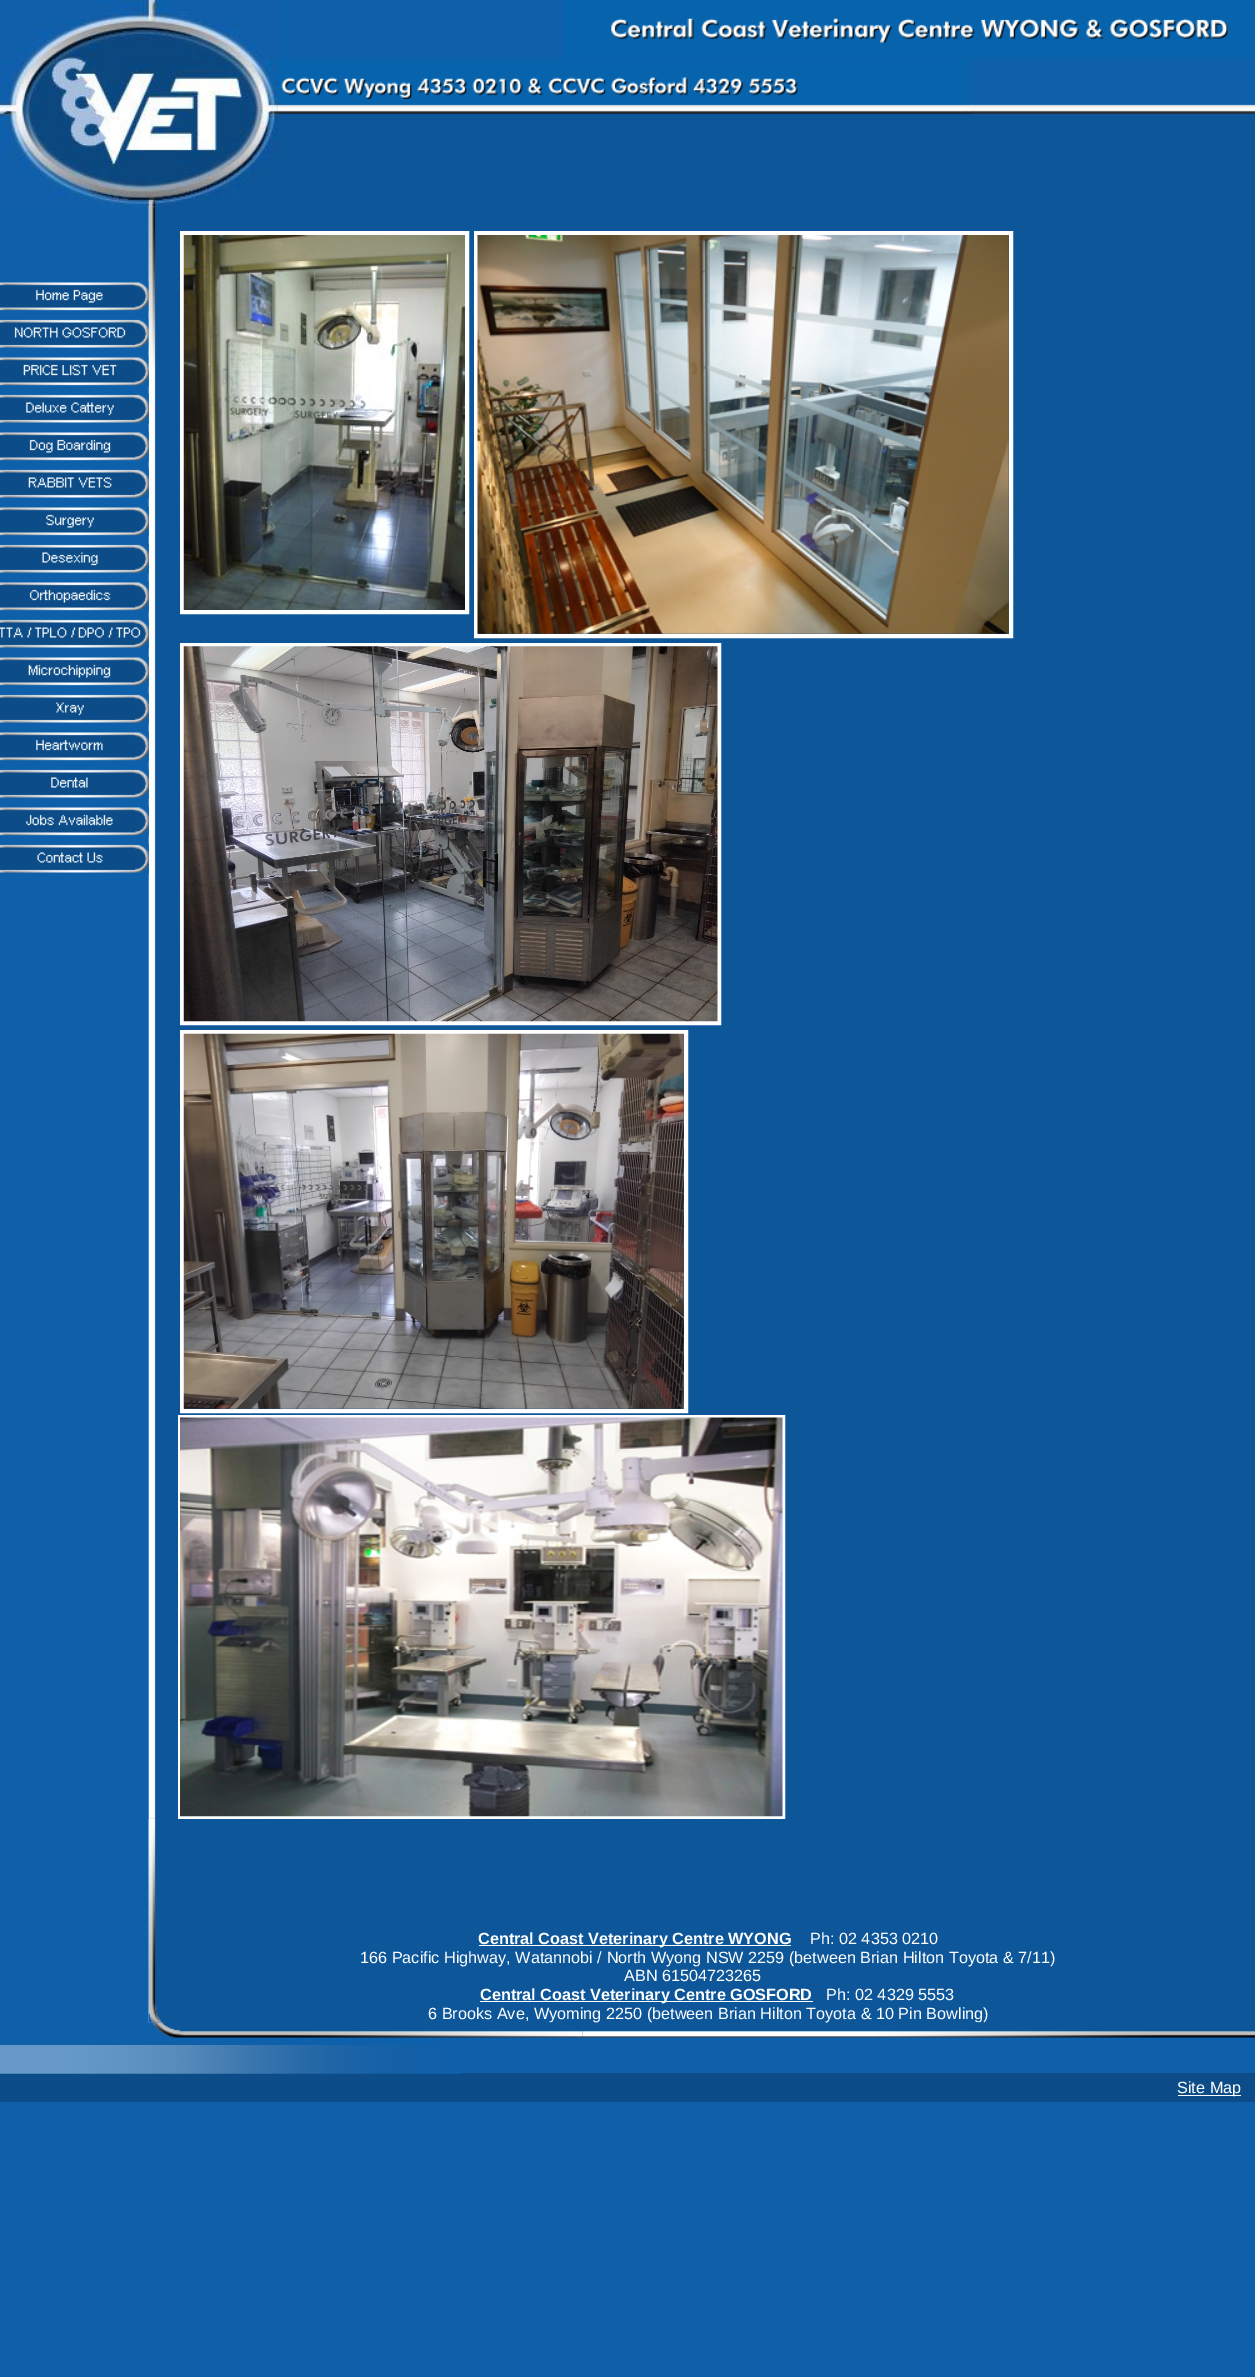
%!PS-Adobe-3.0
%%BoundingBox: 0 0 1255 2377
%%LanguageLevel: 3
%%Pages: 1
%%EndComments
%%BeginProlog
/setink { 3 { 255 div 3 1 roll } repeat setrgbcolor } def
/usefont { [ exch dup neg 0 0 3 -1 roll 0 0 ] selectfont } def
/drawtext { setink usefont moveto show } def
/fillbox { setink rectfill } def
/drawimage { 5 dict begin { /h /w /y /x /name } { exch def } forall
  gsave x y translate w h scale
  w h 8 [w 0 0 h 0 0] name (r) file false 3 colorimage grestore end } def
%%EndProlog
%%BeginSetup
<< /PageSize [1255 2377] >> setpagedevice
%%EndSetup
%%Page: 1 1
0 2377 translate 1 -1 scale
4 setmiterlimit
0 0 1255 2377 15 96 171 fillbox
(assets/img3.rgb) 277 104 978 11 drawimage
277 115 978 91 13 86 154 fillbox
(assets/img21.rgb) 148 206 13 1613 drawimage
161 206 1094 1613 13 86 154 fillbox
(assets/img1.rgb) 0 0 278 207 drawimage
(assets/img2.rgb) 563 0 692 59 drawimage
(assets/img4.rgb) 277 59 693 56 drawimage
(assets/img5.rgb) 0 281 149 31 drawimage
(assets/img6.rgb) 0 318 149 31 drawimage
(assets/img7.rgb) 0 356 149 31 drawimage
(assets/img8.rgb) 0 393 149 31 drawimage
(assets/img9.rgb) 0 431 149 31 drawimage
(assets/img10.rgb) 0 468 149 31 drawimage
(assets/img11.rgb) 0 506 149 31 drawimage
(assets/img12.rgb) 0 543 149 31 drawimage
(assets/img13.rgb) 0 581 149 31 drawimage
(assets/img14.rgb) 0 618 149 31 drawimage
(assets/img15.rgb) 0 656 149 31 drawimage
(assets/img16.rgb) 0 693 149 31 drawimage
(assets/img17.rgb) 0 731 149 31 drawimage
(assets/img18.rgb) 0 768 149 31 drawimage
(assets/img19.rgb) 0 806 149 31 drawimage
(assets/img20.rgb) 0 843 149 31 drawimage
(assets/img22.rgb) 148 206 11 164 drawimage
255 255 255 setink
4 setlinewidth
182 233 285 379 rectstroke
(assets/img23.rgb) 183 235 282 375 drawimage
476 233 535 403 rectstroke
(assets/img24.rgb) 477 235 532 399 drawimage
182 645 537 378 rectstroke
(assets/img25.rgb) 183 646 535 376 drawimage
182 1032 504 379 rectstroke
(assets/img26.rgb) 183 1033 501 376 drawimage
3 setlinewidth
179.5 1416.5 604 401 rectstroke
(assets/img27.rgb) 180 1417 603 400 drawimage
(assets/img28.rgb) 148 1818 14 205 drawimage
161 1819 1094 204 13 86 154 fillbox
(assets/img29.rgb) 148 1818 14 205 drawimage
479 1945 312 1 255 255 255 fillbox
(Central Coast Veterinary Centre WYONG) 478 1944 /LiberationSans-Bold 16.25 255 255 255 drawtext
(Ph: 02 4353 0210) 810 1944 /LiberationSans-Regular 16.25 255 255 255 drawtext
(166 Pacific Highway, Watannobi / North Wyong NSW 2259 \(between Brian Hilton Toyota & 7/11\)) 360 1963 /LiberationSans-Regular 16.25 255 255 255 drawtext
(ABN 61504723265) 624 1981 /LiberationSans-Regular 16.25 255 255 255 drawtext
480 2001 333 1 255 255 255 fillbox
(Central Coast Veterinary Centre GOSFORD) 480 2000 /LiberationSans-Bold 16.25 255 255 255 drawtext
(Ph: 02 4329 5553) 826 2000 /LiberationSans-Regular 16.25 255 255 255 drawtext
(6 Brooks Ave, Wyoming 2250 \(between Brian Hilton Toyota & 10 Pin Bowling\)) 428 2019 /LiberationSans-Regular 16.25 255 255 255 drawtext
(assets/img31.rgb) 582 2023 295 15 drawimage
(assets/img30.rgb) 148 2022 435 16 drawimage
(assets/img32.rgb) 877 2022 378 16 drawimage
0 2073 1255 29 12 77 137 fillbox
(assets/img33.rgb) 0 2045 462 29 drawimage
1178 2095 63 1 255 255 255 fillbox
(Site Map) 1177 2093 /LiberationSans-Regular 16.25 255 255 255 drawtext
showpage
%%EOF
